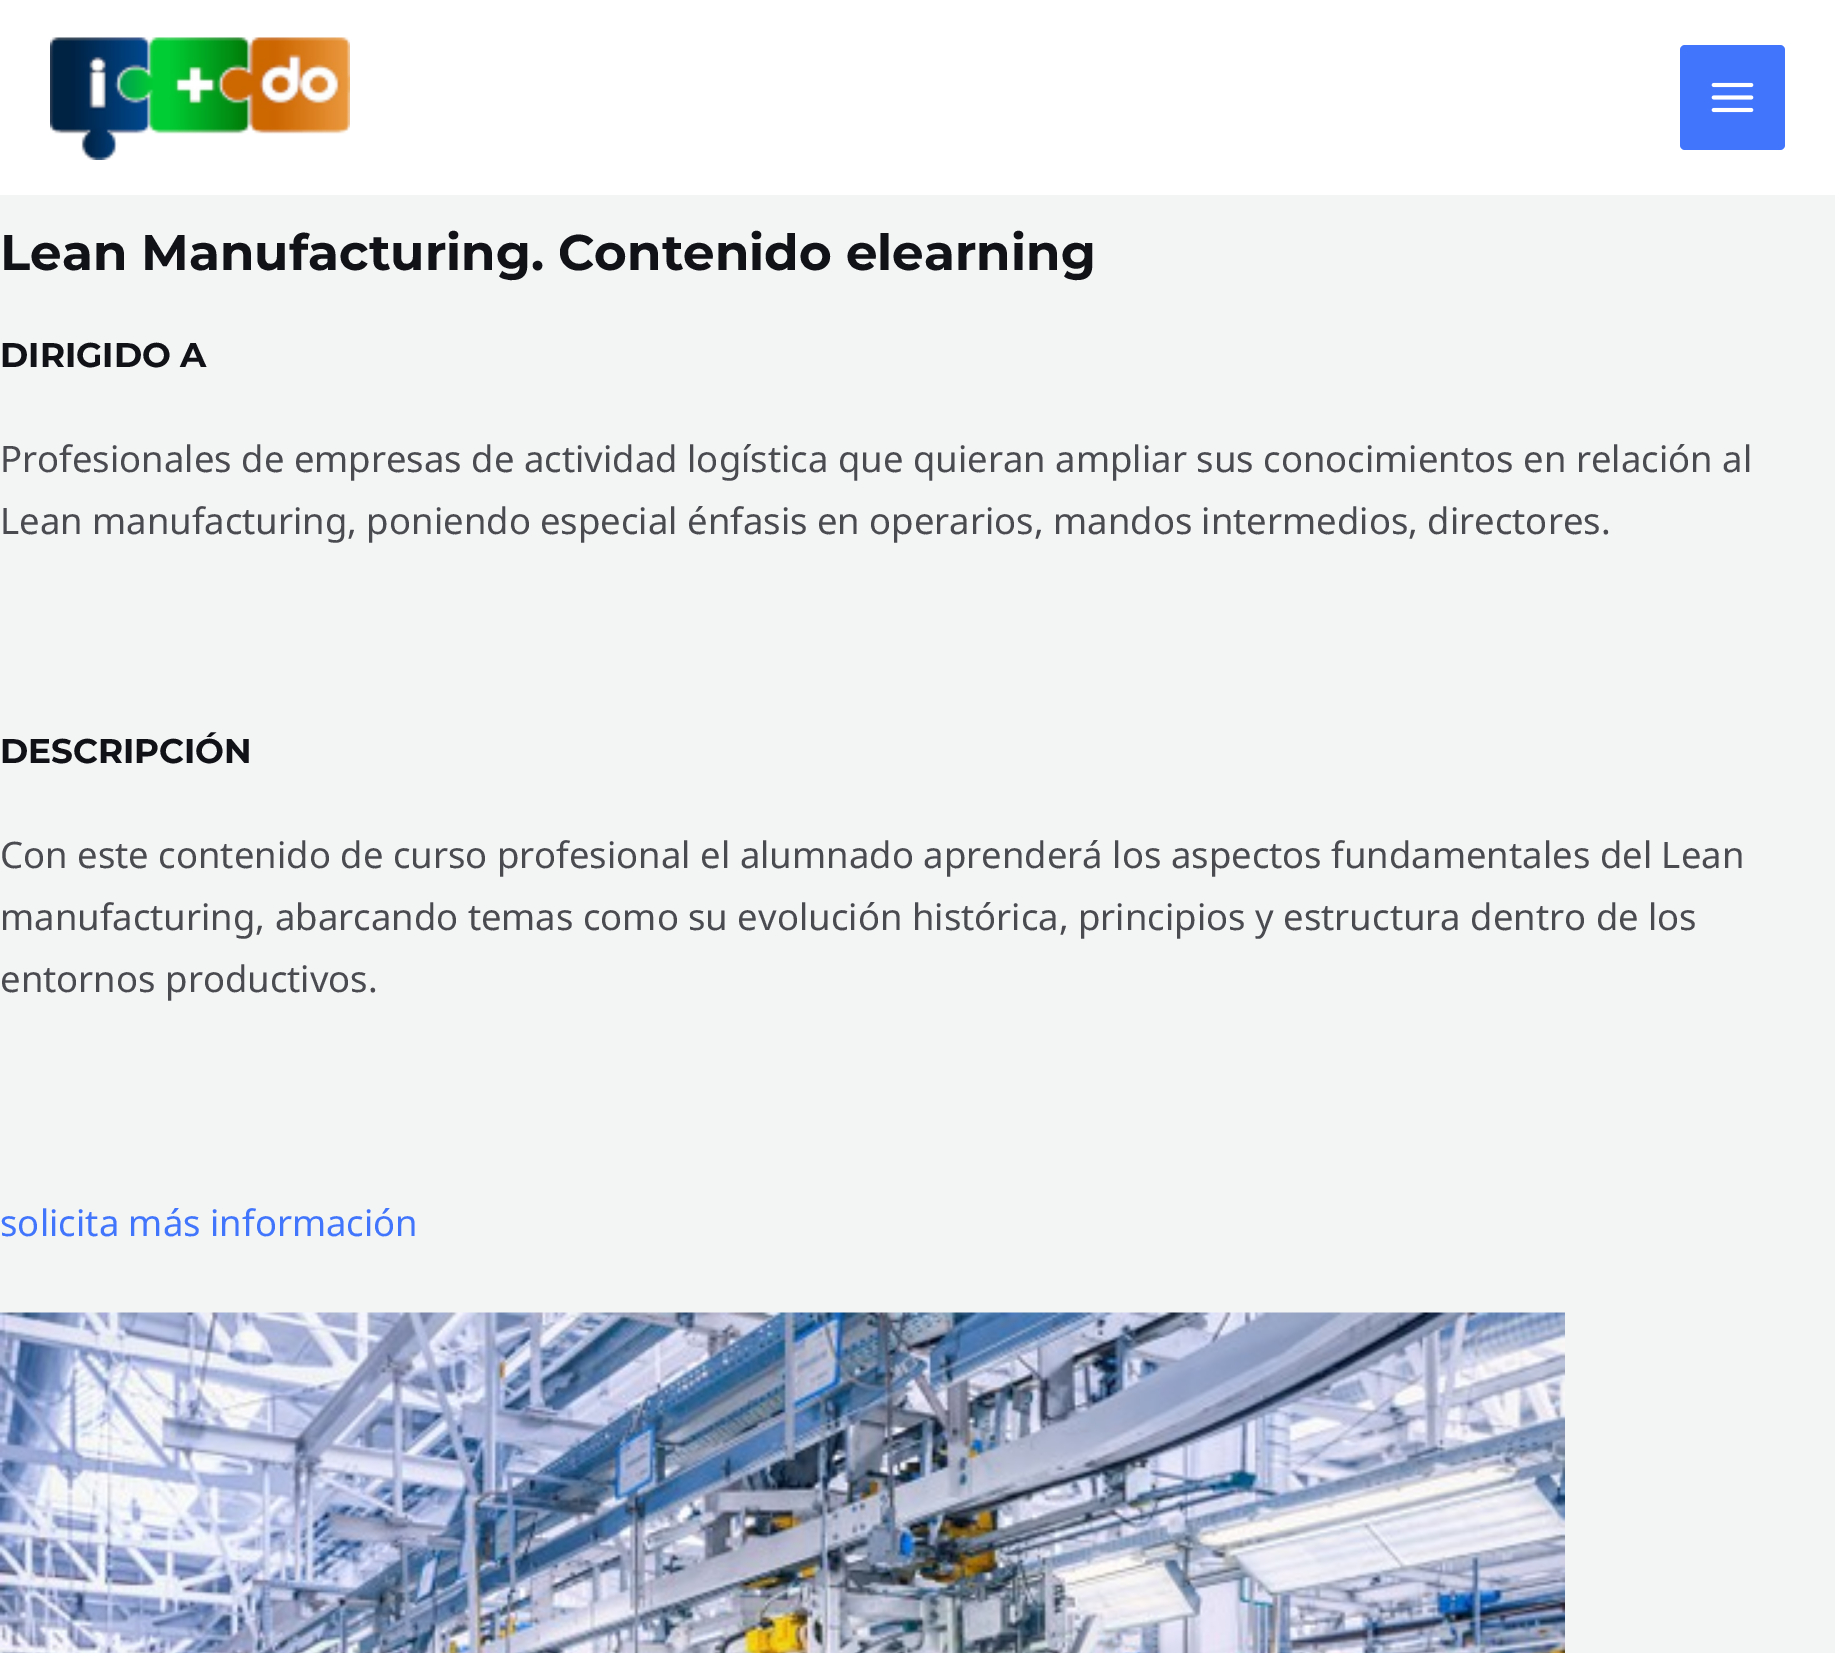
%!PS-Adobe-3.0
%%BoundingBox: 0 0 1835 1653
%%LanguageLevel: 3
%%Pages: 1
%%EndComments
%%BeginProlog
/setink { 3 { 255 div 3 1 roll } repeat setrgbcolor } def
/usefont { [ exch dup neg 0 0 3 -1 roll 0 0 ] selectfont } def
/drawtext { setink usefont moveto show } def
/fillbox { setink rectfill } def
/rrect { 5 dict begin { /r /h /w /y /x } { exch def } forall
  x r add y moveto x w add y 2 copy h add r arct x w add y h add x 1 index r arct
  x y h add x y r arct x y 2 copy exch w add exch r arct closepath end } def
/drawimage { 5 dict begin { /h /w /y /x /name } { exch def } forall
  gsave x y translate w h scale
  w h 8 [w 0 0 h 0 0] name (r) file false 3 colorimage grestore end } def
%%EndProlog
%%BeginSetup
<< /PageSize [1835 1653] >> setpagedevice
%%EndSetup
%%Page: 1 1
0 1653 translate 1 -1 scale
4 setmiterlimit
0 0 1835 1653 243 245 245 fillbox
0 0 1835 195 255 255 255 fillbox
(assets/img1.rgb) 50 37 300 123 drawimage
65 117 252 setink
1680 45 105 105 5 rrect fill
(assets/img2.rgb) 1711 82 43 31 drawimage
(Lean Manufacturing. Contenido elearning) 0 270 /Montserrat-Thin 50 16 18 24 drawtext
(DIRIGIDO A) 0 367 /Montserrat-Thin 34.25 16 18 24 drawtext
/NotoSans-Regular 36.5 usefont
73 75 81 setink
0 472 moveto -0.1 0 32 (Profesionales de empresas de actividad logística que quieran ampliar sus conocimientos en relación al) widthshow
0 534 moveto -0.25 0 32 (Lean manufacturing, poniendo especial énfasis en operarios, mandos intermedios, directores.) widthshow
(DESCRIPCIÓN) 0 763 /Montserrat-Thin 34.25 16 18 24 drawtext
/NotoSans-Regular 36.5 usefont
73 75 81 setink
0 868 moveto -0.1 0 32 (Con este contenido de curso profesional el alumnado aprenderá los aspectos fundamentales del Lean) widthshow
0 930 moveto -0.1 0 32 (manufacturing, abarcando temas como su evolución histórica, principios y estructura dentro de los) widthshow
(entornos productivos.) 0 992 /NotoSans-Regular 36.5 73 75 81 drawtext
(solicita más información) 0 1236 /NotoSans-Regular 36.5 65 117 252 drawtext
(assets/img3.rgb) 0 1312 1565 341 drawimage
showpage
%%EOF
